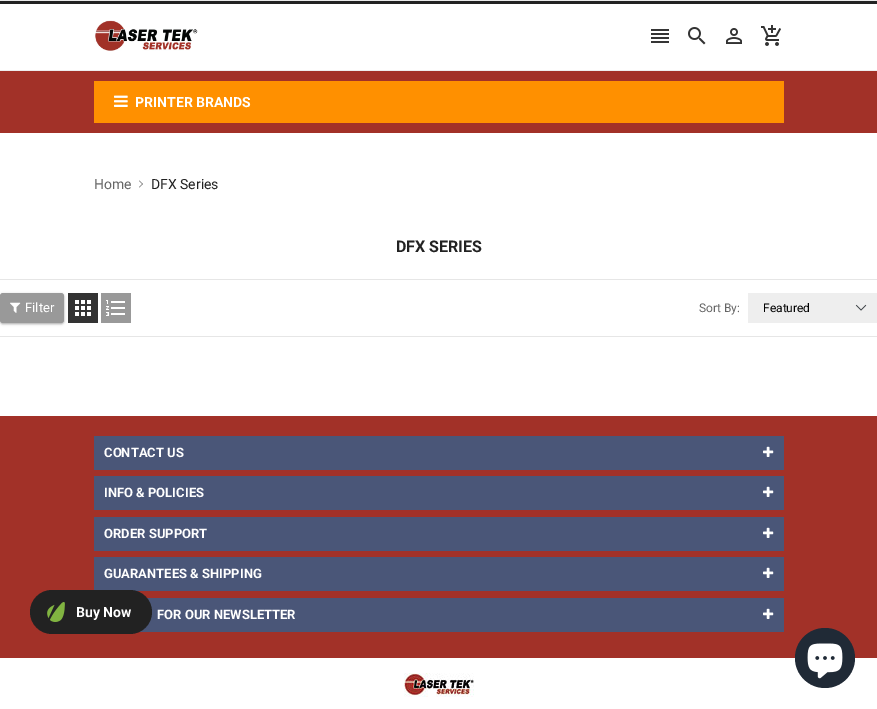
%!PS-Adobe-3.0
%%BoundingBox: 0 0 877 709
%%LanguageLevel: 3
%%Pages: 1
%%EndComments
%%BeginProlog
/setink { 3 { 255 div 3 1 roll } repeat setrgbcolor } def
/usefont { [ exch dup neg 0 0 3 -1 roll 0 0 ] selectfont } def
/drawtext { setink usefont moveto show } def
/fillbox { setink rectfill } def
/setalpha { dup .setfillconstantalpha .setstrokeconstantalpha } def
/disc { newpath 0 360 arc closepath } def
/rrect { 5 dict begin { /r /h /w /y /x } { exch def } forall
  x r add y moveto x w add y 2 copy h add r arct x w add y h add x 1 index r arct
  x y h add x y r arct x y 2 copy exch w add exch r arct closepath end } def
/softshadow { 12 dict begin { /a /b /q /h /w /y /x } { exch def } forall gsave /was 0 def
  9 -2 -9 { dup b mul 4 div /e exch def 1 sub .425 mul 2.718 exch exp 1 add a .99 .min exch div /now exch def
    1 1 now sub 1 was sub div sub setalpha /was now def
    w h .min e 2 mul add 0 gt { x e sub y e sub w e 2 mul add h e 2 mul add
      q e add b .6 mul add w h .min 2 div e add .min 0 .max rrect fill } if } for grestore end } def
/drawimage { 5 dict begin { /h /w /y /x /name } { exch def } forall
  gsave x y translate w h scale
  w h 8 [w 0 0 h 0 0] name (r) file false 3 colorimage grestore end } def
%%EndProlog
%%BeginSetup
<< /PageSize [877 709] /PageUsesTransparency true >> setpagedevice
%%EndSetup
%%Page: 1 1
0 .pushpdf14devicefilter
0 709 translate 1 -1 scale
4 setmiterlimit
0 0 877 709 255 255 255 fillbox
gsave
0 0 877 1 rectclip
0 0 0 setink
0 1 877 70 0 2.5 0.2 softshadow
grestore
0 1 877 3 34 34 34 fillbox
0 70 877 1 238 238 238 fillbox
(assets/img1.rgb) 94 20 104 31 drawimage
(assets/img2.rgb) 651 29 18 14 drawimage
(assets/img3.rgb) 688 27 18 18 drawimage
(assets/img4.rgb) 726 28 16 16 drawimage
(assets/img5.rgb) 761 25 20 21 drawimage
0 71 877 62 162 49 40 fillbox
94 81 690 42 255 144 0 fillbox
(assets/img6.rgb) 114 95 14 12 drawimage
(PRINTER BRANDS) 135 107 /Roboto-Bold 14 255 255 255 drawtext
(Home) 94 189 /Roboto-Regular 14 102 102 102 drawtext
136 136 136 setink
139.5 180.5 moveto 143 184 lineto 142.5 184.5 lineto 139 181 lineto closepath fill
142.5 183.5 moveto 143 184 lineto 139.5 187.5 lineto 139 187 lineto closepath fill
(DFX Series) 151 189 /Roboto-Regular 14 34 34 34 drawtext
(DFX SERIES) 396 252 /Roboto-Bold 16 34 34 34 drawtext
0 279 877 1 230 230 230 fillbox
0 0 0 setink
0 294 64 30 3 1 0.24 softshadow
0 294 64 30 3 1.5 0.12 softshadow
153 153 153 setink
0 293 64 30 3 rrect fill
(assets/img7.rgb) 10 302 11 11 drawimage
(Filter) 25 312 /Roboto-Regular 13 255 255 255 drawtext
68 293 30 30 51 51 51 fillbox
(assets/img8.rgb) 75 300 16 16 drawimage
101 293 30 30 153 153 153 fillbox
(assets/img9.rgb) 106 300 19 16 drawimage
(Sort By:) 699 312 /Roboto-Regular 12 102 102 102 drawtext
748 293 129 30 238 238 238 fillbox
(assets/img10.rgb) 855 304 12 7 drawimage
(Featured) 763 312 /Roboto-Regular 12 0 0 0 drawtext
0 336 877 1 230 230 230 fillbox
0 416 877 242 162 49 40 fillbox
94 436 690 34 74 86 120 fillbox
(CONTACT US) 104 457 /Roboto-Bold 13 255 255 255 drawtext
(assets/img11.rgb) 763 446 11 11 drawimage
94 476 690 34 74 86 120 fillbox
(INFO & POLICIES) 104 497 /Roboto-Bold 13 255 255 255 drawtext
(assets/img11.rgb) 763 486 11 11 drawimage
94 517 690 34 74 86 120 fillbox
(ORDER SUPPORT) 104 538 /Roboto-Bold 13 255 255 255 drawtext
(assets/img11.rgb) 763 527 11 11 drawimage
94 557 690 34 74 86 120 fillbox
(GUARANTEES & SHIPPING) 104 578 /Roboto-Bold 13 255 255 255 drawtext
(assets/img11.rgb) 763 567 11 11 drawimage
139 598 645 34 74 86 120 fillbox
(FOR OUR NEWSLETTER) 157 619 /Roboto-Bold 13 255 255 255 drawtext
(assets/img11.rgb) 763 608 11 11 drawimage
(assets/img12.rgb) 404 673 70 24 drawimage
34 34 34 setink
30 590 122 44 22 rrect fill
(assets/img13.rgb) 47 602 18 20 drawimage
(Buy Now) 76 617 /Roboto-Bold 14 255 255 255 drawtext
32 42 54 setink
825 658 30 disc fill
(assets/img14.rgb) 807 643 36 36 drawimage
.poppdf14devicefilter showpage
%%EOF
